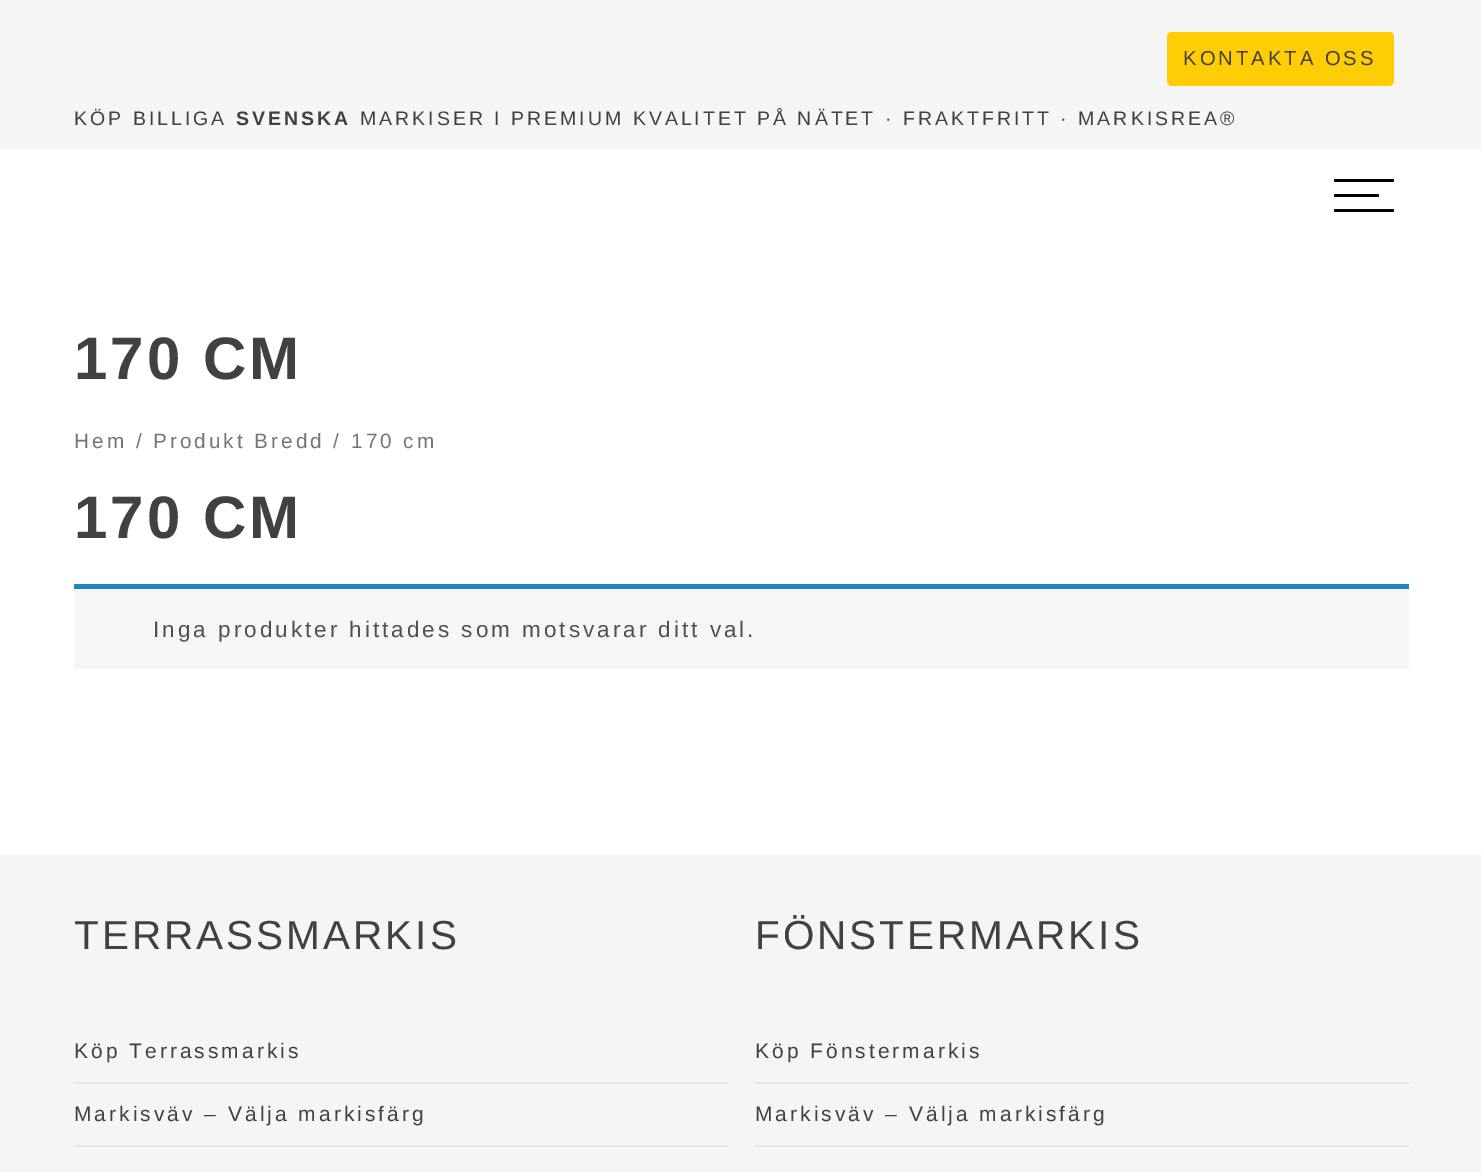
%!PS-Adobe-3.0
%%BoundingBox: 0 0 1481 1172
%%LanguageLevel: 3
%%Pages: 1
%%EndComments
%%BeginProlog
/setink { 3 { 255 div 3 1 roll } repeat setrgbcolor } def
/usefont { [ exch dup neg 0 0 3 -1 roll 0 0 ] selectfont } def
/fillbox { setink rectfill } def
/rrect { 5 dict begin { /r /h /w /y /x } { exch def } forall
  x r add y moveto x w add y 2 copy h add r arct x w add y h add x 1 index r arct
  x y h add x y r arct x y 2 copy exch w add exch r arct closepath end } def
%%EndProlog
%%BeginSetup
<< /PageSize [1481 1172] >> setpagedevice
%%EndSetup
%%Page: 1 1
0 1172 translate 1 -1 scale
4 setmiterlimit
0 0 1481 1172 255 255 255 fillbox
0 0 1481 149 245 245 245 fillbox
255 205 5 setink
1167 32 227 54 5 rrect fill
/LiberationSans-Regular 20.25 usefont
65 65 65 setink
1183 65 moveto 3 0 (KONTAKTA OSS) ashow
/LiberationSans-Regular 19.5 usefont
74 125 moveto 3 0 (KÖP BILLIGA) ashow
/LiberationSans-Bold 19.5 usefont
236 125 moveto 3 0 (SVENSKA) ashow
/LiberationSans-Regular 19.5 usefont
360 125 moveto 3 0 (MARKISER I PREMIUM KVALITET PÅ NÄTET · FRAKTFRITT · MARKISREA®) ashow
0 0 0 setink
1334 194 45 3 1.5 rrect fill
1334 179 60 3 1.5 rrect fill
1334 209 60 3 1.5 rrect fill
/LiberationSans-Bold 60 usefont
65 65 65 setink
74 379 moveto 3 0 (170 CM) ashow
/LiberationSans-Regular 20.75 usefont
118 118 118 setink
74 448 moveto 3 0 (Hem / Produkt Bredd / 170 cm) ashow
/LiberationSans-Bold 60 usefont
65 65 65 setink
74 538 moveto 3 0 (170 CM) ashow
74 589 1335 80 246 245 248 fillbox
74 584 1335 5 30 133 190 fillbox
/LiberationSans-Regular 22.5 usefont
81 81 81 setink
153 637 moveto 3 0 (Inga produkter hittades som motsvarar ditt val.) ashow
0 855 1481 317 245 245 245 fillbox
/LiberationSans-Regular 40.5 usefont
65 65 65 setink
74 949 moveto 3 0 (TERRASSMARKIS) ashow
74 1082 654 2 231 230 228 fillbox
/LiberationSans-Regular 21 usefont
65 65 65 setink
74 1058 moveto 3 0 (Köp Terrassmarkis) ashow
74 1145 654 2 231 230 228 fillbox
65 65 65 setink
74 1121 moveto 3 0 (Markisväv – Välja markisfärg) ashow
/LiberationSans-Regular 40.5 usefont
755 949 moveto 3 0 (FÖNSTERMARKIS) ashow
755 1082 654 2 231 230 228 fillbox
/LiberationSans-Regular 21 usefont
65 65 65 setink
755 1058 moveto 3 0 (Köp Fönstermarkis) ashow
755 1145 654 2 231 230 228 fillbox
65 65 65 setink
755 1121 moveto 3 0 (Markisväv – Välja markisfärg) ashow
showpage
%%EOF
